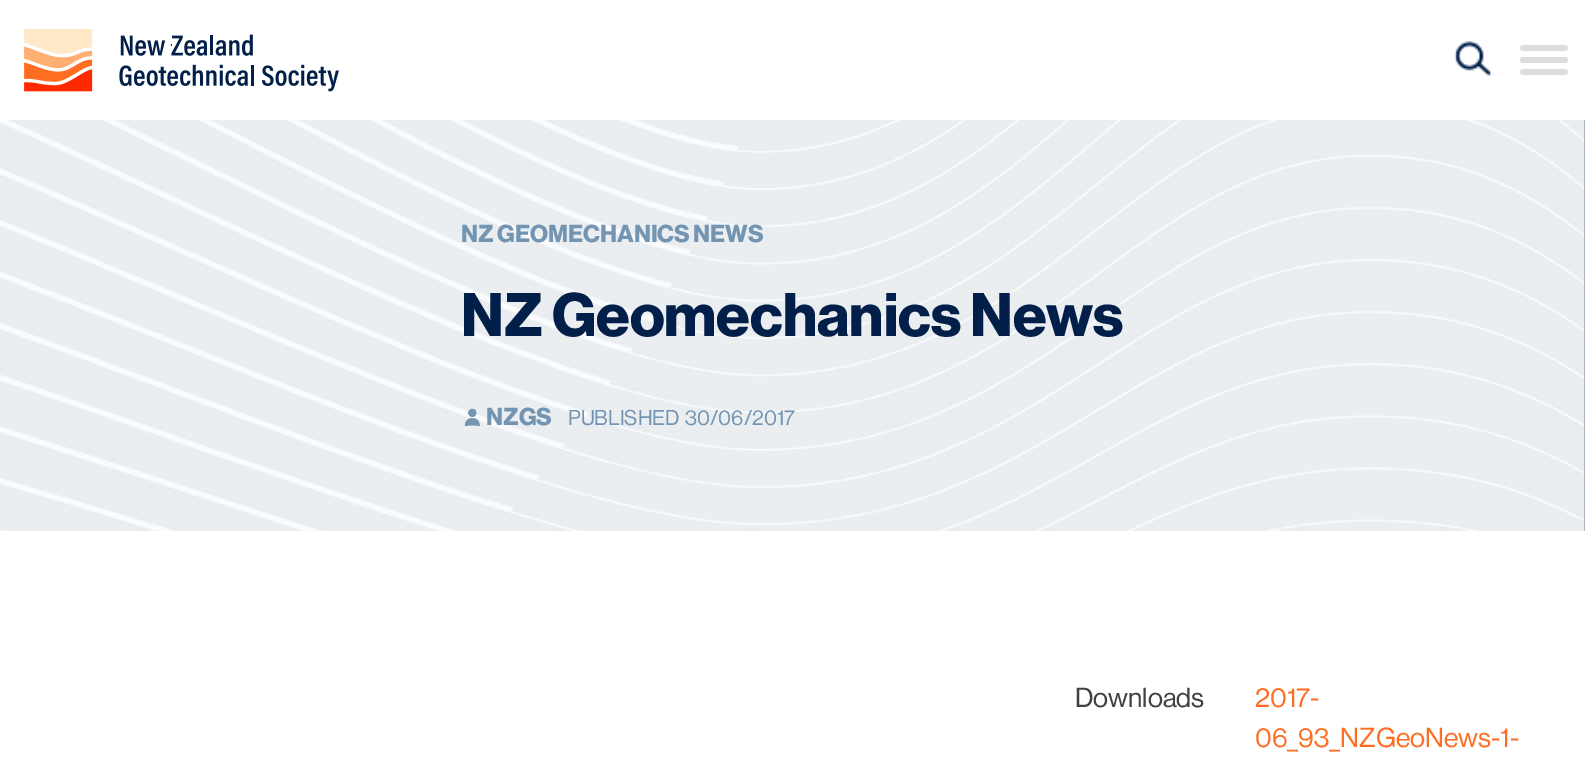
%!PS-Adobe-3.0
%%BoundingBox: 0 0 1585 771
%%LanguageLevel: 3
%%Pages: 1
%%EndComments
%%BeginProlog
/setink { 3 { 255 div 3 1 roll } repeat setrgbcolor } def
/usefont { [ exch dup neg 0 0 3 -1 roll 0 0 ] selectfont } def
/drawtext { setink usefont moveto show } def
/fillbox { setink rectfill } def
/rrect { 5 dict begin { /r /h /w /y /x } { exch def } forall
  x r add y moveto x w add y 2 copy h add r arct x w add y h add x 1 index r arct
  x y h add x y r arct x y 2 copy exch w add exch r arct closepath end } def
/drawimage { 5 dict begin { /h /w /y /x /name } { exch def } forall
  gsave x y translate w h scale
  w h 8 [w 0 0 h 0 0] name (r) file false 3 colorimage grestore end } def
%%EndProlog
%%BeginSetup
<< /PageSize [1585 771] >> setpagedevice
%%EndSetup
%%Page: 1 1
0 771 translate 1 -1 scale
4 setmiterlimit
0 0 1585 771 255 255 255 fillbox
(assets/img1.rgb) 24 29 315 63 drawimage
(assets/img2.rgb) 1454 41 37 35 drawimage
221 221 221 setink
1520 45 48 6 3 rrect fill
1520 57 48 6 3 rrect fill
1520 69 48 6 3 rrect fill
(assets/img3.rgb) 0 120 1585 411 drawimage
(NZ GEOMECHANICS NEWS) 461 242 /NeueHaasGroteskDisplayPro-Bold 24 116 149 178 drawtext
(NZ Geomechanics News) 461 336 /NeueHaasGroteskDisplayPro-Bold 60 1 31 73 drawtext
(assets/img4.rgb) 464 408 16 19 drawimage
(NZGS) 486 425 /NeueHaasGroteskDisplayPro-Bold 24 116 149 178 drawtext
(PUBLISHED) 568 425 /NeueHaasGroteskDisplayPro-Regular 21 116 149 178 drawtext
(30/06/2017) 685 425 /NeueHaasGroteskDisplayPro-Regular 21 116 149 178 drawtext
(Downloads) 1075 707 /NeueHaasGroteskDisplayPro-Regular 27 64 64 64 drawtext
(2017-) 1255 707 /NeueHaasGroteskDisplayPro-Regular 27 255 109 34 drawtext
(06_93_NZGeoNews-1-) 1255 747 /NeueHaasGroteskDisplayPro-Regular 27 255 109 34 drawtext
showpage
%%EOF
